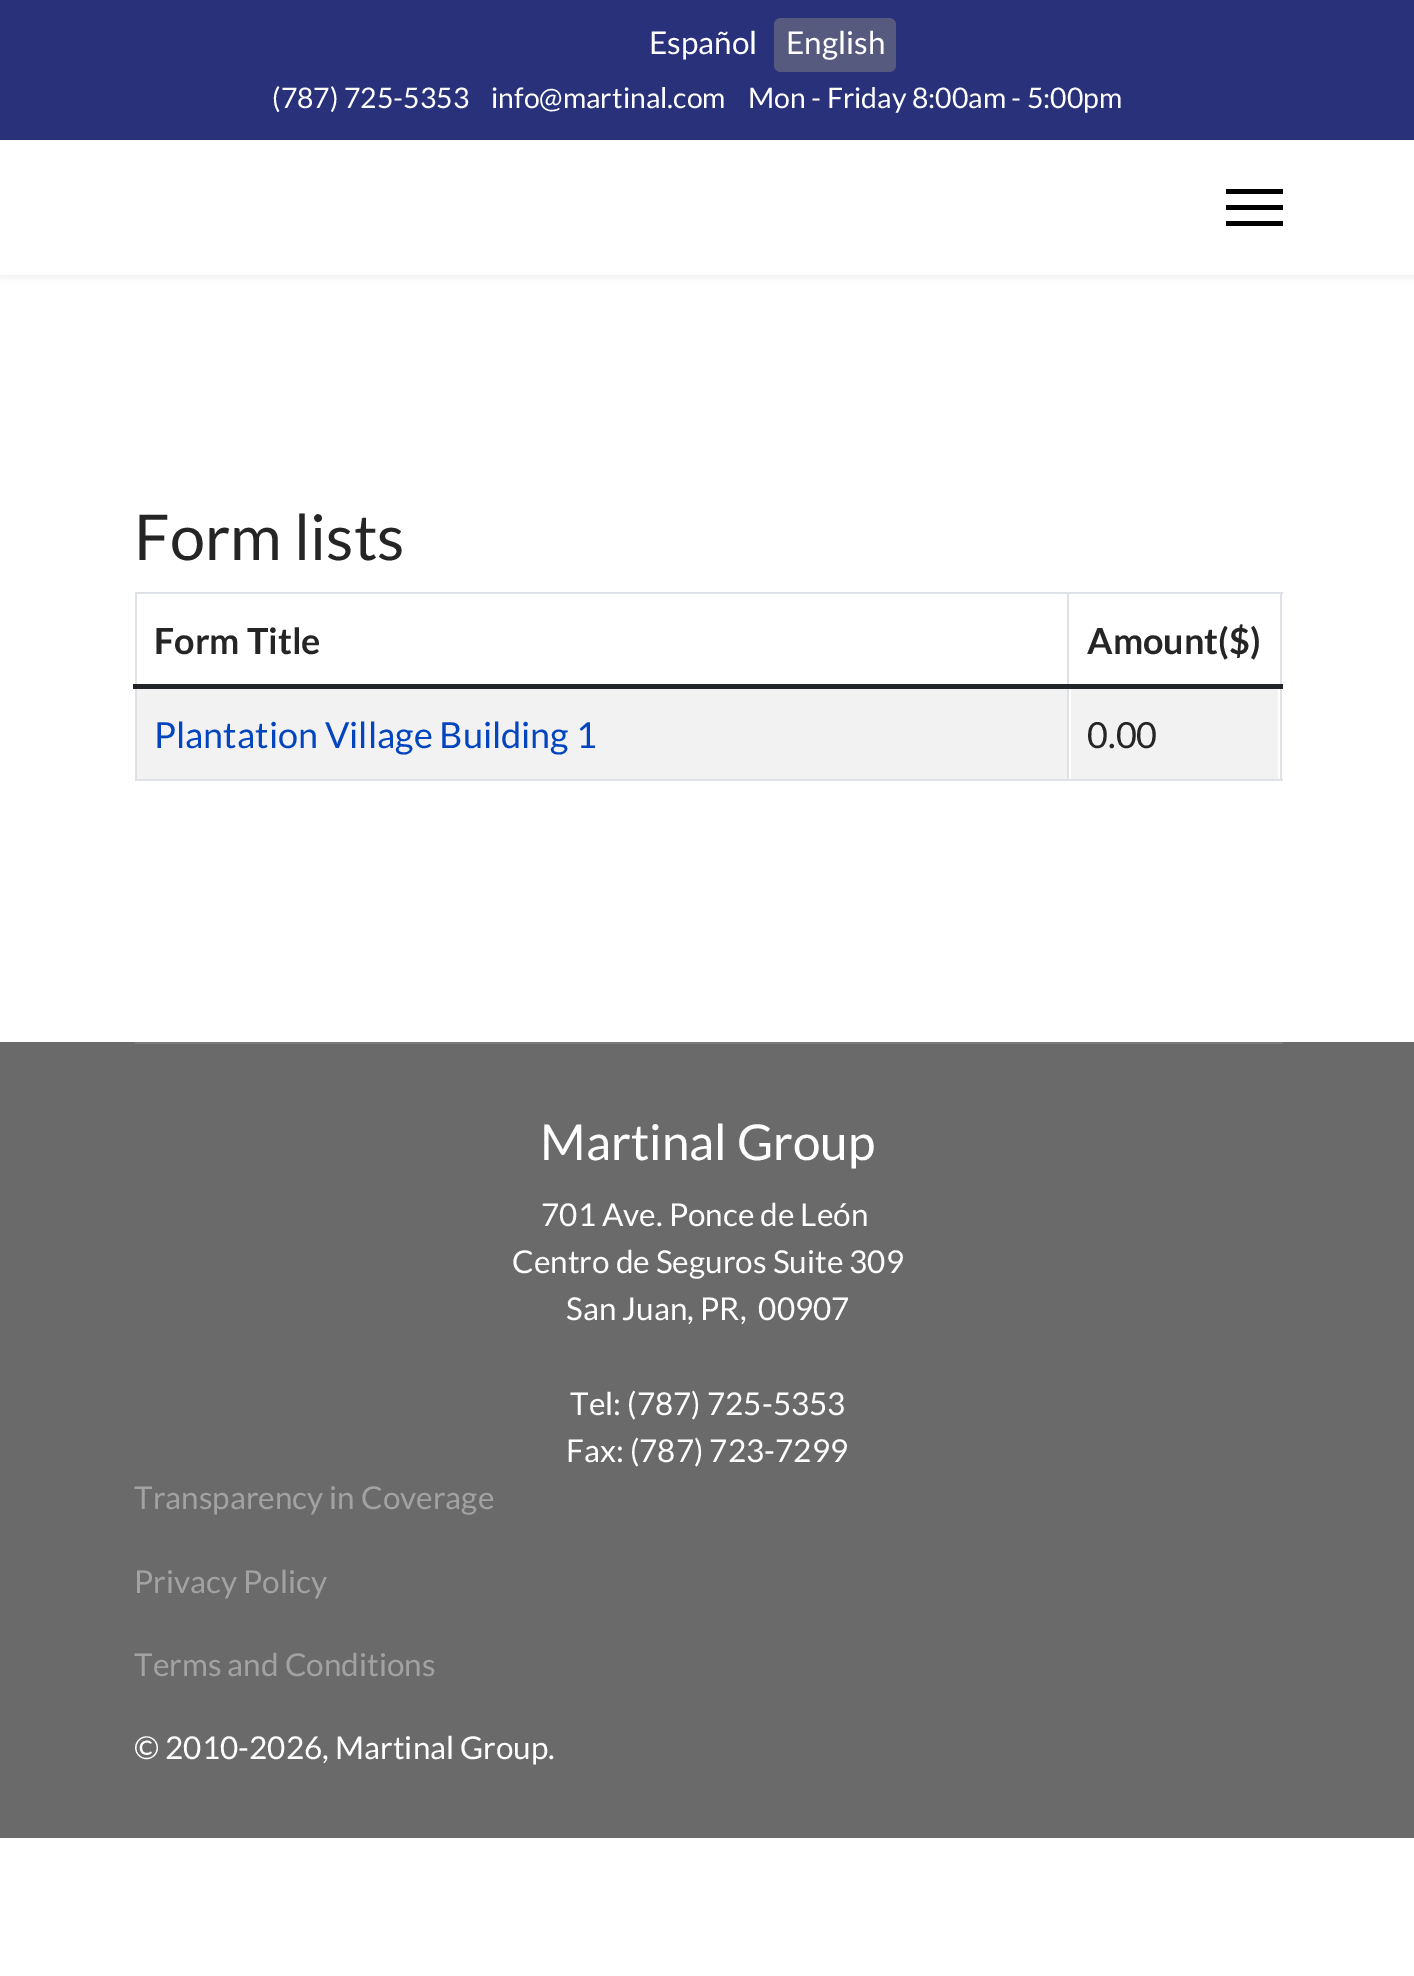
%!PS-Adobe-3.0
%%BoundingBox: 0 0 1414 1976
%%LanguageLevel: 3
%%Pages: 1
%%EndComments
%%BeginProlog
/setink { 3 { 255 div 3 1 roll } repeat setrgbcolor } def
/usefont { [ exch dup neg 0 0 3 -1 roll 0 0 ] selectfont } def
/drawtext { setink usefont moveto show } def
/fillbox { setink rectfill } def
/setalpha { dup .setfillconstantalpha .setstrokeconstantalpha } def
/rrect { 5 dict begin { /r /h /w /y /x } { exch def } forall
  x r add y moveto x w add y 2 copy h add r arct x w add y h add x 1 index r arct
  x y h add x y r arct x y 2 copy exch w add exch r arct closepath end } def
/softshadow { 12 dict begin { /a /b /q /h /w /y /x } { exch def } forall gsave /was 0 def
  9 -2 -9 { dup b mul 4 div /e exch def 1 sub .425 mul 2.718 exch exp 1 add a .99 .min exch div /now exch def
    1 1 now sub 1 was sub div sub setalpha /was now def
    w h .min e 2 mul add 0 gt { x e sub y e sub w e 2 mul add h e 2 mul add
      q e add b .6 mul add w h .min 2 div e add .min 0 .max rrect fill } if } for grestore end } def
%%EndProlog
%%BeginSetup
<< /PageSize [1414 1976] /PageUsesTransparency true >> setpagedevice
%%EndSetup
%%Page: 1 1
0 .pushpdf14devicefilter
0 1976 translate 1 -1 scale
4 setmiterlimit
0 0 1414 1976 255 255 255 fillbox
0 0 1414 140 41 49 122 fillbox
(Español) 649 54 /Lato-Regular 31.5 255 255 255 drawtext
86 90 126 setink
774 18 122 54 7 rrect fill
(English) 786 54 /Lato-Regular 31.5 255 255 255 drawtext
(\(787\) 725-5353) 272 108 /Lato-Regular 28.4 255 255 255 drawtext
(info@martinal.com) 491 108 /Lato-Regular 28.4 255 255 255 drawtext
(Mon - Friday 8:00am - 5:00pm) 748 108 /Lato-Regular 28.4 255 255 255 drawtext
0 0 0 setink
0 140 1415 135 0 4.5 0.1 softshadow
0 140 1414 135 255 255 255 fillbox
1226 189 57 5 0 0 0 fillbox
1226 205 57 5 0 0 0 fillbox
1226 221 57 5 0 0 0 fillbox
(Form lists) 134 560 /Lato-Regular 63 37 37 37 drawtext
135 592 1148 2 222 226 230 fillbox
(Form Title) 154 654 /Lato-Bold 36 37 37 37 drawtext
(Amount\($\)) 1087 654 /Lato-Bold 36 37 37 37 drawtext
135 779 1148 2 222 226 230 fillbox
135 592 2 189 222 226 230 fillbox
1280 592 2 189 222 226 230 fillbox
1067 592 2 189 222 226 230 fillbox
133 684 1150 5 33 37 41 fillbox
137 689 930 90 242 242 242 fillbox
(Plantation Village Building 1) 154 748 /Lato-Regular 36 3 69 191 drawtext
1071 689 207 90 242 242 242 fillbox
(0.00) 1087 748 /Lato-Regular 36 37 37 37 drawtext
0 1042 1414 796 106 106 106 fillbox
135 1042 1148 2 121 121 121 fillbox
(Martinal Group) 540 1160 /Lato-Regular 49.5 255 255 255 drawtext
(701 Ave. Ponce de León) 541 1226 /Lato-Regular 31.5 255 255 255 drawtext
(Centro de Seguros Suite 309) 512 1273 /Lato-Regular 31.5 255 255 255 drawtext
(San Juan, PR,  00907) 566 1320 /Lato-Regular 31.5 255 255 255 drawtext
(Tel: \(787\) 725-5353) 570 1415 /Lato-Regular 31.5 255 255 255 drawtext
(Fax: \(787\) 723-7299) 566 1462 /Lato-Regular 31.5 255 255 255 drawtext
(Transparency in Coverage) 134 1509 /Lato-Regular 31.5 162 162 162 drawtext
(Privacy Policy) 134 1593 /Lato-Regular 31.5 162 162 162 drawtext
(Terms and Conditions) 134 1676 /Lato-Regular 31.5 162 162 162 drawtext
(© 2010-2026, Martinal Group.) 134 1759 /Lato-Regular 31.5 255 255 255 drawtext
.poppdf14devicefilter showpage
%%EOF
